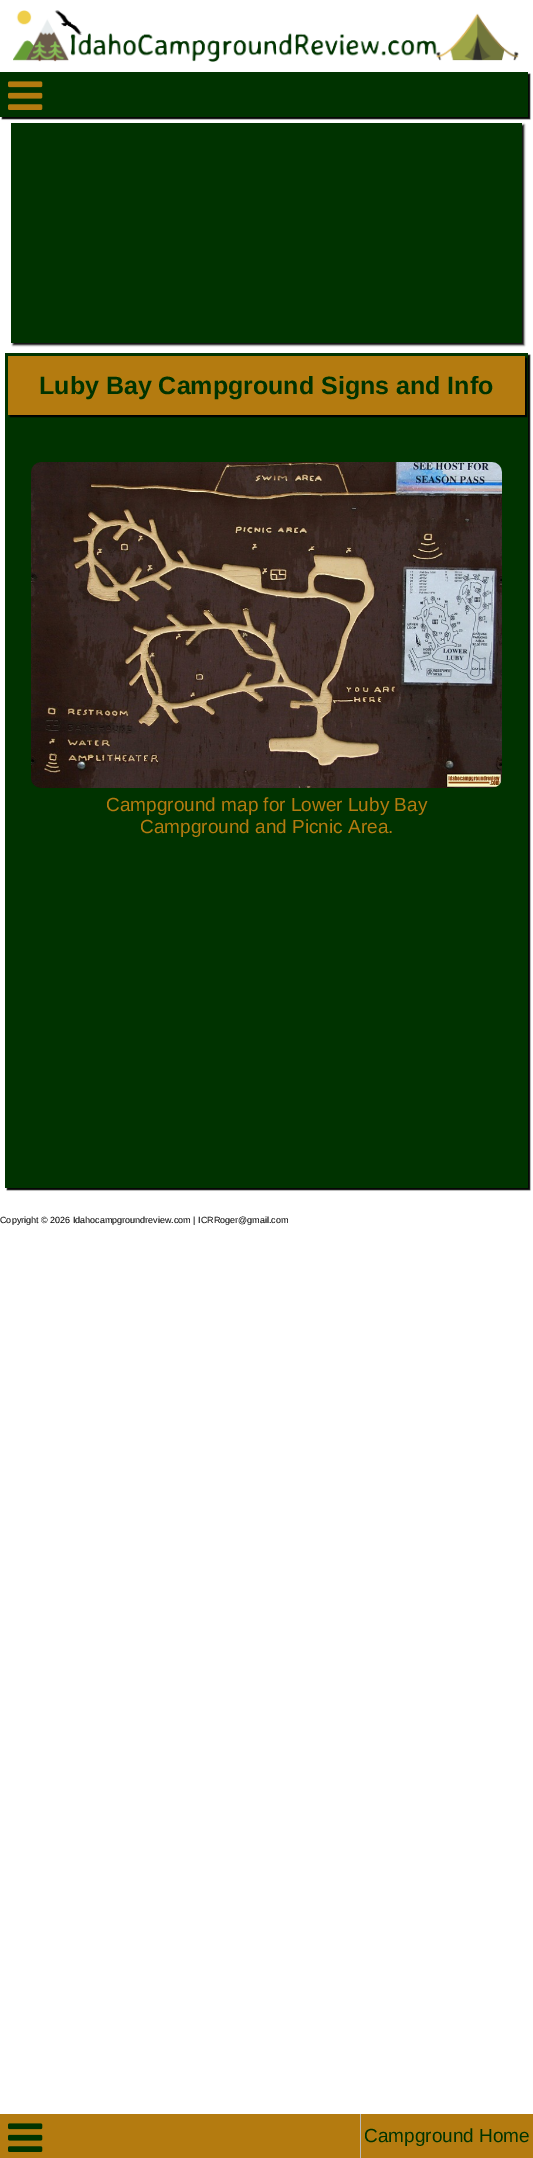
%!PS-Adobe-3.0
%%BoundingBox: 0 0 533 2158
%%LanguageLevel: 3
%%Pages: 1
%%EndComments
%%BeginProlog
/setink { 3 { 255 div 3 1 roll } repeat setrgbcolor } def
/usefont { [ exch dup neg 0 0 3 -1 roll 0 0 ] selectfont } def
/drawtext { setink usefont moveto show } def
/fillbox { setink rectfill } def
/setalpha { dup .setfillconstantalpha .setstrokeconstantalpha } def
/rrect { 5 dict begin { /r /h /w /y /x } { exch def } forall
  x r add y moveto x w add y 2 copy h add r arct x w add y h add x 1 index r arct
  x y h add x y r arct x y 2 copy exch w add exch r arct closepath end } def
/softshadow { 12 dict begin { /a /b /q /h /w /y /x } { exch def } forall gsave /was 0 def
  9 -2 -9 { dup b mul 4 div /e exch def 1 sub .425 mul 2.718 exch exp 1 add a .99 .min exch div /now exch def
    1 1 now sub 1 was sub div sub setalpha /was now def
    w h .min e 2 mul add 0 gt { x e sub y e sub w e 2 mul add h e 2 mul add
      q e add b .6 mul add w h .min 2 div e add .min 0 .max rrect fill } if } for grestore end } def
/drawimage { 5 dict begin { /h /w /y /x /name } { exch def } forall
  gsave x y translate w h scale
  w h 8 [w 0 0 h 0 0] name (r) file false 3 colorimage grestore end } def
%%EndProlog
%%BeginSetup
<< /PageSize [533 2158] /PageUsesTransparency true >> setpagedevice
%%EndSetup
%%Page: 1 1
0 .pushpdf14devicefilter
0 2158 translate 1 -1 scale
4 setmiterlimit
0 0 533 2158 255 255 255 fillbox
(assets/img1.rgb) 13 10 506 52 drawimage
0 0 0 setink
2 74 528 45 0 0.5 1 softshadow
0 72 528 45 0 51 0 fillbox
(assets/img2.rgb) 8 81 35 29 drawimage
0 0 0 setink
13 125 511 220 0 1 1 softshadow
11 123 511 220 0 51 0 fillbox
0 0 0 setink
7 355 523 835 0 0.5 1 softshadow
5 353 523 835 0 51 0 fillbox
0 0 0 setink
10 358 517 59 0 0.5 1 softshadow
8 356 517 59 180 123 16 fillbox
(Luby Bay Campground Signs and Info) 39 394 /LiberationSans-Bold 25 0 51 0 drawtext
(assets/img3.rgb) 31 462 471 326 drawimage
(Campground map for Lower Luby Bay) 106 811 /LiberationSans-Regular 19 180 123 16 drawtext
(Campground and Picnic Area.) 140 833 /LiberationSans-Regular 19 180 123 16 drawtext
0 2114 533 44 180 123 16 fillbox
(assets/img4.rgb) 8 2123 35 29 drawimage
360 2114 1 44 187 187 187 fillbox
(Campground Home) 364 2142 /LiberationSans-Regular 19 0 51 0 drawtext
(Copyright © 2026 Idahocampgroundreview.com | ICRRoger@gmail.com) 0 1223 /LiberationSans-Regular 9 0 0 0 drawtext
.poppdf14devicefilter showpage
%%EOF
